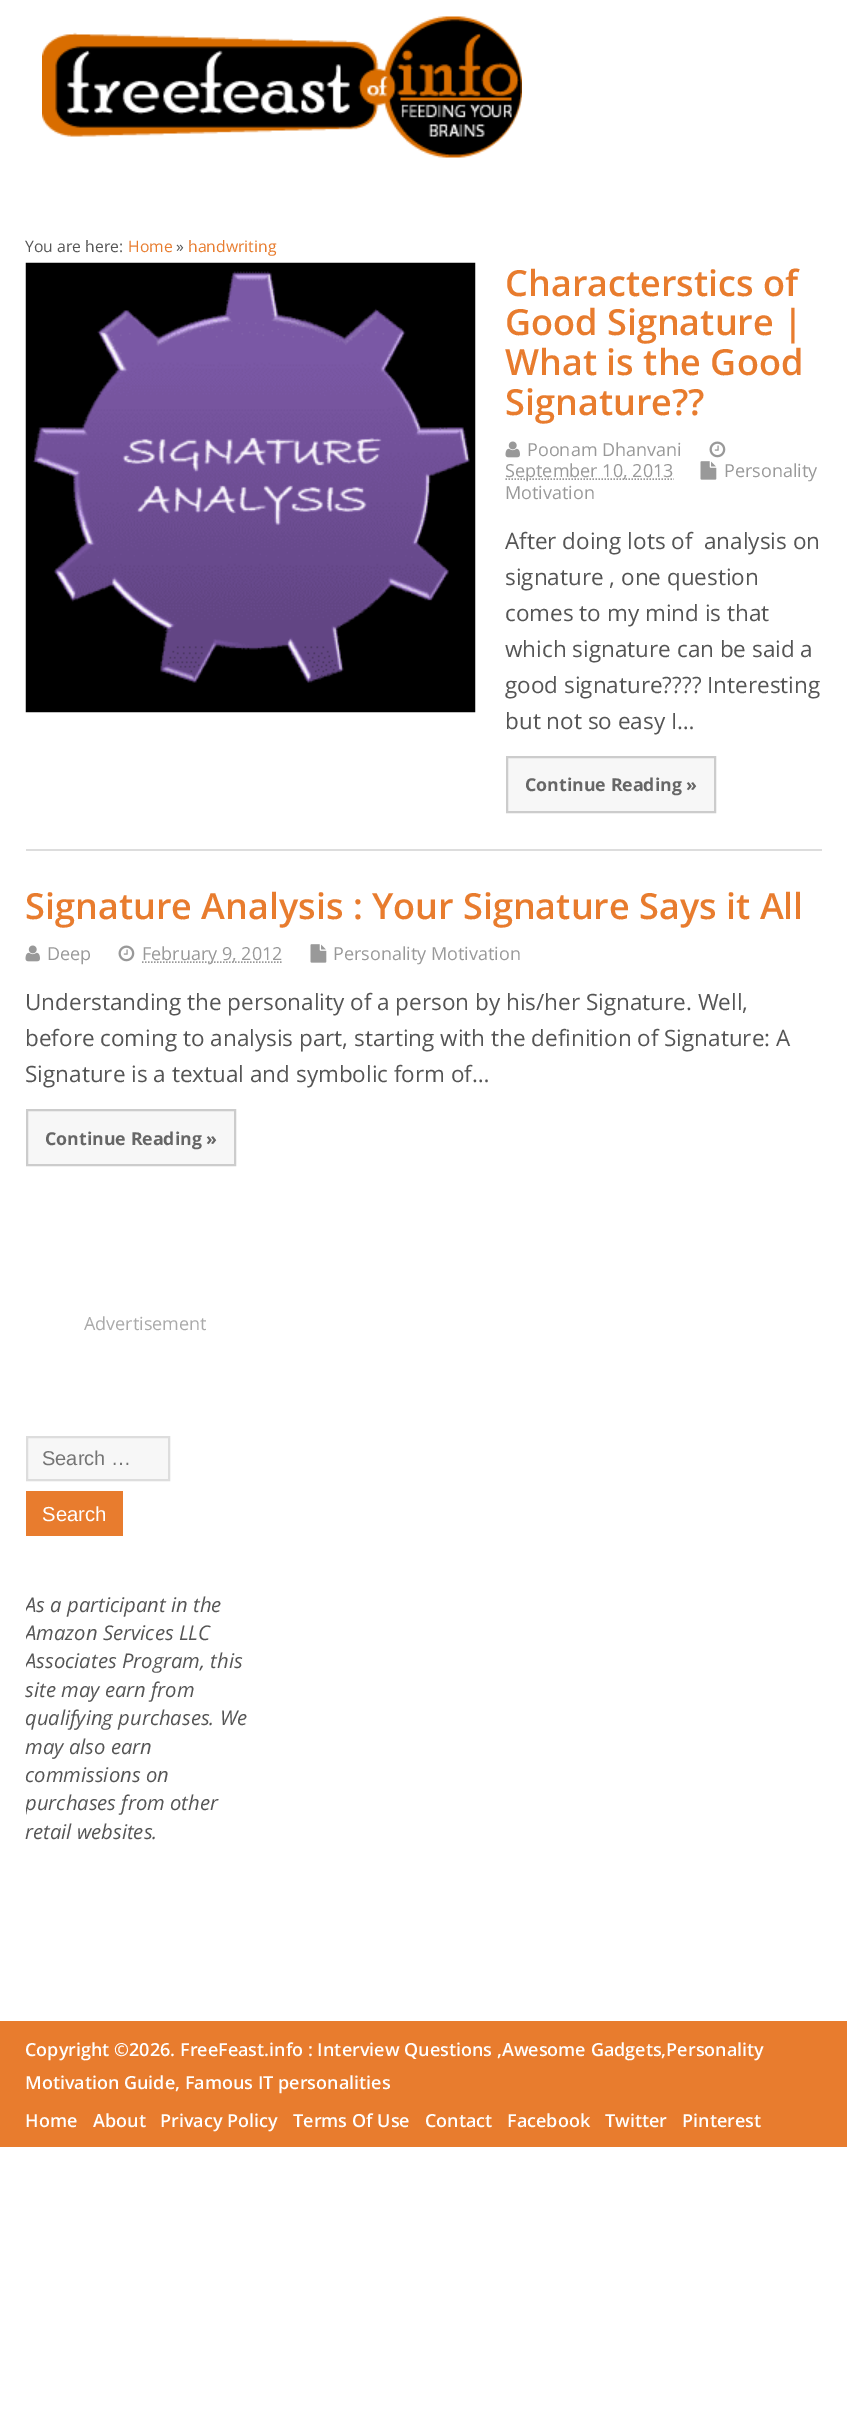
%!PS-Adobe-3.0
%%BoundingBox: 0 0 847 2421
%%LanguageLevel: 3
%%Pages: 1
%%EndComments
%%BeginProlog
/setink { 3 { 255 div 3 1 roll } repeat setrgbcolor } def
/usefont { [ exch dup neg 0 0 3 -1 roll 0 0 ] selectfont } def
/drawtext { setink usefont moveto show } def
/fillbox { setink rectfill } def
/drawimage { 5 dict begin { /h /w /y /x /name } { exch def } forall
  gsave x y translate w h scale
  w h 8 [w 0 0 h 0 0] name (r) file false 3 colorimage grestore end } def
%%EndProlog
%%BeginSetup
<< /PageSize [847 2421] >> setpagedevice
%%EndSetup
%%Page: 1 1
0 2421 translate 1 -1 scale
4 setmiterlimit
0 0 847 2421 255 255 255 fillbox
(assets/img1.rgb) 42 16 480 142 drawimage
(You are here:) 25 252 /OpenSans-Regular 15.75 85 85 85 drawtext
(Home) 128 252 /OpenSans-Regular 15.75 232 124 46 drawtext
(») 176 252 /OpenSans-Regular 15.75 85 85 85 drawtext
(handwriting) 188 252 /OpenSans-Regular 15.75 232 124 46 drawtext
26 849 796 2 221 221 221 fillbox
(assets/img2.rgb) 25 262 451 451 drawimage
(Characterstics of) 505 296 /OpenSans-SemiBold 36 232 124 46 drawtext
(Good Signature |) 505 335 /OpenSans-SemiBold 36 232 124 46 drawtext
(What is the Good) 505 375 /OpenSans-SemiBold 36 232 124 46 drawtext
(Signature??) 505 415 /OpenSans-SemiBold 36 232 124 46 drawtext
(assets/img3.rgb) 505 441 15 17 drawimage
(Poonam Dhanvani) 527 456 /OpenSans-Regular 18 153 153 153 drawtext
(assets/img4.rgb) 709 441 17 17 drawimage
1.5 setlinewidth
[1.5 1.5] 0 setdash
505.5 479 moveto 674 479 lineto stroke
(September 10, 2013) 505 477 /OpenSans-Regular 18 153 153 153 drawtext
(assets/img5.rgb) 700 461 17 19 drawimage
(Personality) 724 477 /OpenSans-Regular 18 153 153 153 drawtext
(Motivation) 505 499 /OpenSans-Regular 18 153 153 153 drawtext
(After doing lots of  analysis on) 505 549 /OpenSans-Regular 22.5 85 85 85 drawtext
(signature , one question) 505 585 /OpenSans-Regular 22.5 85 85 85 drawtext
(comes to my mind is that) 505 621 /OpenSans-Regular 22.5 85 85 85 drawtext
(which signature can be said a) 505 657 /OpenSans-Regular 22.5 85 85 85 drawtext
(good signature???? Interesting) 505 693 /OpenSans-Regular 22.5 85 85 85 drawtext
(but not so easy I…) 505 729 /OpenSans-Regular 22.5 85 85 85 drawtext
247 247 247 setink
507 757 moveto 715 757 lineto 715 812 lineto 507 812 lineto closepath gsave fill grestore
204 204 204 setink
2 setlinewidth
[] 0 setdash
stroke
(Continue Reading ») 525 791 /OpenSans-Bold 17.75 102 102 102 drawtext
(Signature Analysis : Your Signature Says it All) 25 919 /OpenSans-SemiBold 36 232 124 46 drawtext
(assets/img3.rgb) 25 945 15 17 drawimage
(Deep) 47 960 /OpenSans-Regular 18 153 153 153 drawtext
(assets/img4.rgb) 118 945 17 17 drawimage
1.5 setlinewidth
[1.5 1.5] 0 setdash
142 962 moveto 283 962 lineto stroke
(February 9, 2012) 142 960 /OpenSans-Regular 18 153 153 153 drawtext
(assets/img5.rgb) 310 944 17 19 drawimage
(Personality Motivation) 333 960 /OpenSans-Regular 18 153 153 153 drawtext
(Understanding the personality of a person by his/her Signature. Well,) 25 1010 /OpenSans-Regular 22.5 85 85 85 drawtext
(before coming to analysis part, starting with the definition of Signature: A) 25 1046 /OpenSans-Regular 22.5 85 85 85 drawtext
(Signature is a textual and symbolic form of…) 25 1082 /OpenSans-Regular 22.5 85 85 85 drawtext
247 247 247 setink
27 1110 moveto 235 1110 lineto 235 1165 lineto 27 1165 lineto closepath gsave fill grestore
204 204 204 setink
2 setlinewidth
[] 0 setdash
stroke
(Continue Reading ») 45 1145 /OpenSans-Bold 17.75 102 102 102 drawtext
(Advertisement) 84 1330 /OpenSans-Regular 18 170 170 170 drawtext
247 247 247 setink
27 1437 moveto 169 1437 lineto 169 1480 lineto 27 1480 lineto closepath gsave fill grestore
221 221 221 setink
stroke
(Search …) 42 1465 /LiberationSans-Regular 20 117 117 117 drawtext
26 1491 97 45 232 124 46 fillbox
(Search) 42 1521 /LiberationSans-Regular 20.25 255 255 255 drawtext
gsave
26 1308 238 626 rectclip
(As a participant in the) 25 1612 /OpenSans-Italic 20.25 85 85 85 drawtext
(Amazon Services LLC) 25 1640 /OpenSans-Italic 20.25 85 85 85 drawtext
(Associates Program, this) 25 1668 /OpenSans-Italic 20.25 85 85 85 drawtext
grestore
(site may earn from) 25 1697 /OpenSans-Italic 20.25 85 85 85 drawtext
(qualifying purchases. We) 25 1725 /OpenSans-Italic 20.25 85 85 85 drawtext
(may also earn) 25 1754 /OpenSans-Italic 20.25 85 85 85 drawtext
(commissions on) 25 1782 /OpenSans-Italic 20.25 85 85 85 drawtext
gsave
26 1308 238 626 rectclip
(purchases from other) 25 1810 /OpenSans-Italic 20.25 85 85 85 drawtext
grestore
(retail websites.) 25 1839 /OpenSans-Italic 20.25 85 85 85 drawtext
0 2021 847 126 232 124 46 fillbox
(Copyright ©2026. FreeFeast.info : Interview Questions ,Awesome Gadgets,Personality) 25 2056 /OpenSans-SemiBold 18 255 255 255 drawtext
(Motivation Guide, Famous IT personalities) 25 2089 /OpenSans-SemiBold 18 255 255 255 drawtext
(Home) 25 2127 /OpenSans-SemiBold 18 255 255 255 drawtext
(About) 93 2127 /OpenSans-SemiBold 18 255 255 255 drawtext
(Privacy Policy) 160 2127 /OpenSans-SemiBold 18 255 255 255 drawtext
(Terms Of Use) 293 2127 /OpenSans-SemiBold 18 255 255 255 drawtext
(Contact) 425 2127 /OpenSans-SemiBold 18 255 255 255 drawtext
(Facebook) 507 2127 /OpenSans-SemiBold 18 255 255 255 drawtext
(Twitter) 605 2127 /OpenSans-SemiBold 18 255 255 255 drawtext
(Pinterest) 682 2127 /OpenSans-SemiBold 18 255 255 255 drawtext
showpage
%%EOF
